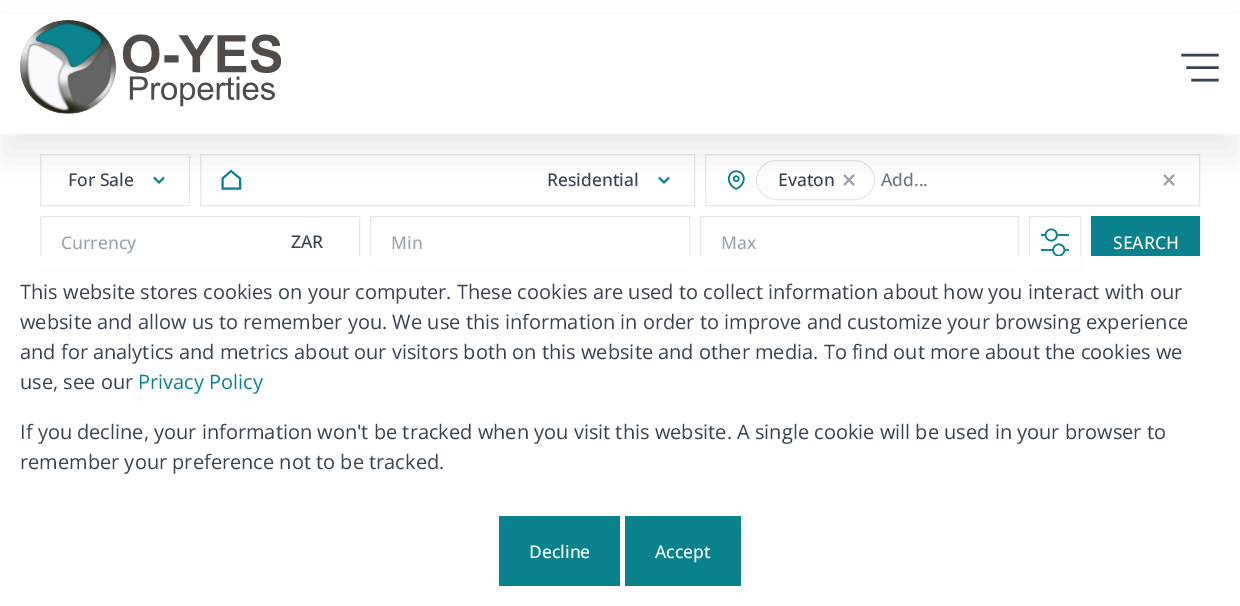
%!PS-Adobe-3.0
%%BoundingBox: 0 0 1240 606
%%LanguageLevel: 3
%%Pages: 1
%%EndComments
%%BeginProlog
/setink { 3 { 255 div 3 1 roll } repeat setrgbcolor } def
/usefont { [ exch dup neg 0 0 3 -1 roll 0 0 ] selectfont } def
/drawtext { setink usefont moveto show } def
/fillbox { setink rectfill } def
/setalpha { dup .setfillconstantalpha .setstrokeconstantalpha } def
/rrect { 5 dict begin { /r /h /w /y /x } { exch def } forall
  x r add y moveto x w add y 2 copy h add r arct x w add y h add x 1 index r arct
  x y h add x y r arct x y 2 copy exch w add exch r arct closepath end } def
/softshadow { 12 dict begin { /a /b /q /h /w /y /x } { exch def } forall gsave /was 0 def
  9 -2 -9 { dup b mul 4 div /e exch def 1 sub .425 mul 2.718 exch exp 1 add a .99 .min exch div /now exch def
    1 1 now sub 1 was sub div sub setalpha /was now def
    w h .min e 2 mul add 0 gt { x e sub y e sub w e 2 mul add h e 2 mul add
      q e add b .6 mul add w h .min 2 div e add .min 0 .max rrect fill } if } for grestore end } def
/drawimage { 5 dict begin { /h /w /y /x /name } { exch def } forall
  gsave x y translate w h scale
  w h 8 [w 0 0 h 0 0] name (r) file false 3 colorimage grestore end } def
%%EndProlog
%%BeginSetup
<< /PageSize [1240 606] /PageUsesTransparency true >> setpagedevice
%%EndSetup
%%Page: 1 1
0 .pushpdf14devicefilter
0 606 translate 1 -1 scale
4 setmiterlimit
0 0 1240 606 255 255 255 fillbox
229 231 234 setink
40.5 154.5 149 51 rectstroke
9 130 141 setink
1.9 setlinewidth
154 177.5 moveto 159 182.5 lineto 164 177.5 lineto stroke
229 231 234 setink
1 setlinewidth
200.5 154.5 494 51 rectstroke
9 130 141 setink
1.9 setlinewidth
240 188.5 moveto 222.5 188.5 lineto 222.5 178.5 lineto 231 171 lineto 240 178.5 lineto closepath stroke
659 177.5 moveto 664 182.5 lineto 669 177.5 lineto stroke
229 231 234 setink
1 setlinewidth
705.5 154.5 494 51 rectstroke
(assets/img2.rgb) 727 170 18 20 drawimage
756.5 160.5 118 39 19.5 rrect stroke
156 164 175 setink
1.9 setlinewidth
844 175 moveto 854 185 lineto 854 175 moveto 844 185 lineto stroke
1164 175 moveto 1174 185 lineto 1174 175 moveto 1164 185 lineto stroke
15 23 41 setink
5 30 1230 124 0 15 0.08 softshadow
0 14 1240 120 255 255 255 fillbox
(assets/img1.rgb) 20 20 261 94 drawimage
55 66 82 setink
2.5 setlinewidth
2 setlinecap
1182.5 55 moveto 1217.5 55 lineto 1187.5 67.5 moveto 1217.5 67.5 lineto 1192.5 80 moveto 1217.5 80 lineto stroke
(For Sale) 68 186 /OpenSans-Medium 17.5 55 66 82 drawtext
(Residential) 547 186 /OpenSans-Medium 17.5 55 66 82 drawtext
(Evaton) 778 186 /OpenSans-Medium 17.5 55 66 82 drawtext
(Add...) 881 186 /OpenSans-Medium 17.5 107 118 134 drawtext
229 231 234 setink
1 setlinewidth
0 setlinecap
40.5 216.5 319 52 rectstroke
(Currency) 61 249 /OpenSans-Medium 17.5 156 164 175 drawtext
(ZAR) 291 248 /OpenSans-Medium 17.5 55 66 82 drawtext
229 231 234 setink
370.5 216.5 319 52 rectstroke
(Min) 391 249 /OpenSans-Medium 17.5 156 164 175 drawtext
229 231 234 setink
700.5 216.5 318 52 rectstroke
(Max) 721 249 /OpenSans-Medium 17.5 156 164 175 drawtext
229 231 234 setink
1029.5 216.5 51 52 rectstroke
(assets/img3.rgb) 1040 228 30 28 drawimage
1091 216 109 40 9 130 141 fillbox
(SEARCH) 1113 249 /OpenSans-Medium 17.5 255 255 255 drawtext
40 256 1041 13 255 255 255 fillbox
(This website stores cookies on your computer. These cookies are used to collect information about how you interact with our) 20 299 /OpenSans-Regular 20 55 66 82 drawtext
(website and allow us to remember you. We use this information in order to improve and customize your browsing experience) 20 329 /OpenSans-Regular 20 55 66 82 drawtext
(and for analytics and metrics about our visitors both on this website and other media. To find out more about the cookies we) 20 359 /OpenSans-Regular 20 55 66 82 drawtext
(use, see our) 20 389 /OpenSans-Regular 20 55 66 82 drawtext
(Privacy Policy) 138 389 /OpenSans-Regular 20 9 130 141 drawtext
(If you decline, your information won't be tracked when you visit this website. A single cookie will be used in your browser to) 20 439 /OpenSans-Regular 20 55 66 82 drawtext
(remember your preference not to be tracked.) 20 469 /OpenSans-Regular 20 55 66 82 drawtext
499 516 121 70 9 130 141 fillbox
(Decline) 529 558 /OpenSans-Medium 17.5 255 255 255 drawtext
625 516 116 70 9 130 141 fillbox
(Accept) 655 558 /OpenSans-Medium 17.5 255 255 255 drawtext
.poppdf14devicefilter showpage
%%EOF
